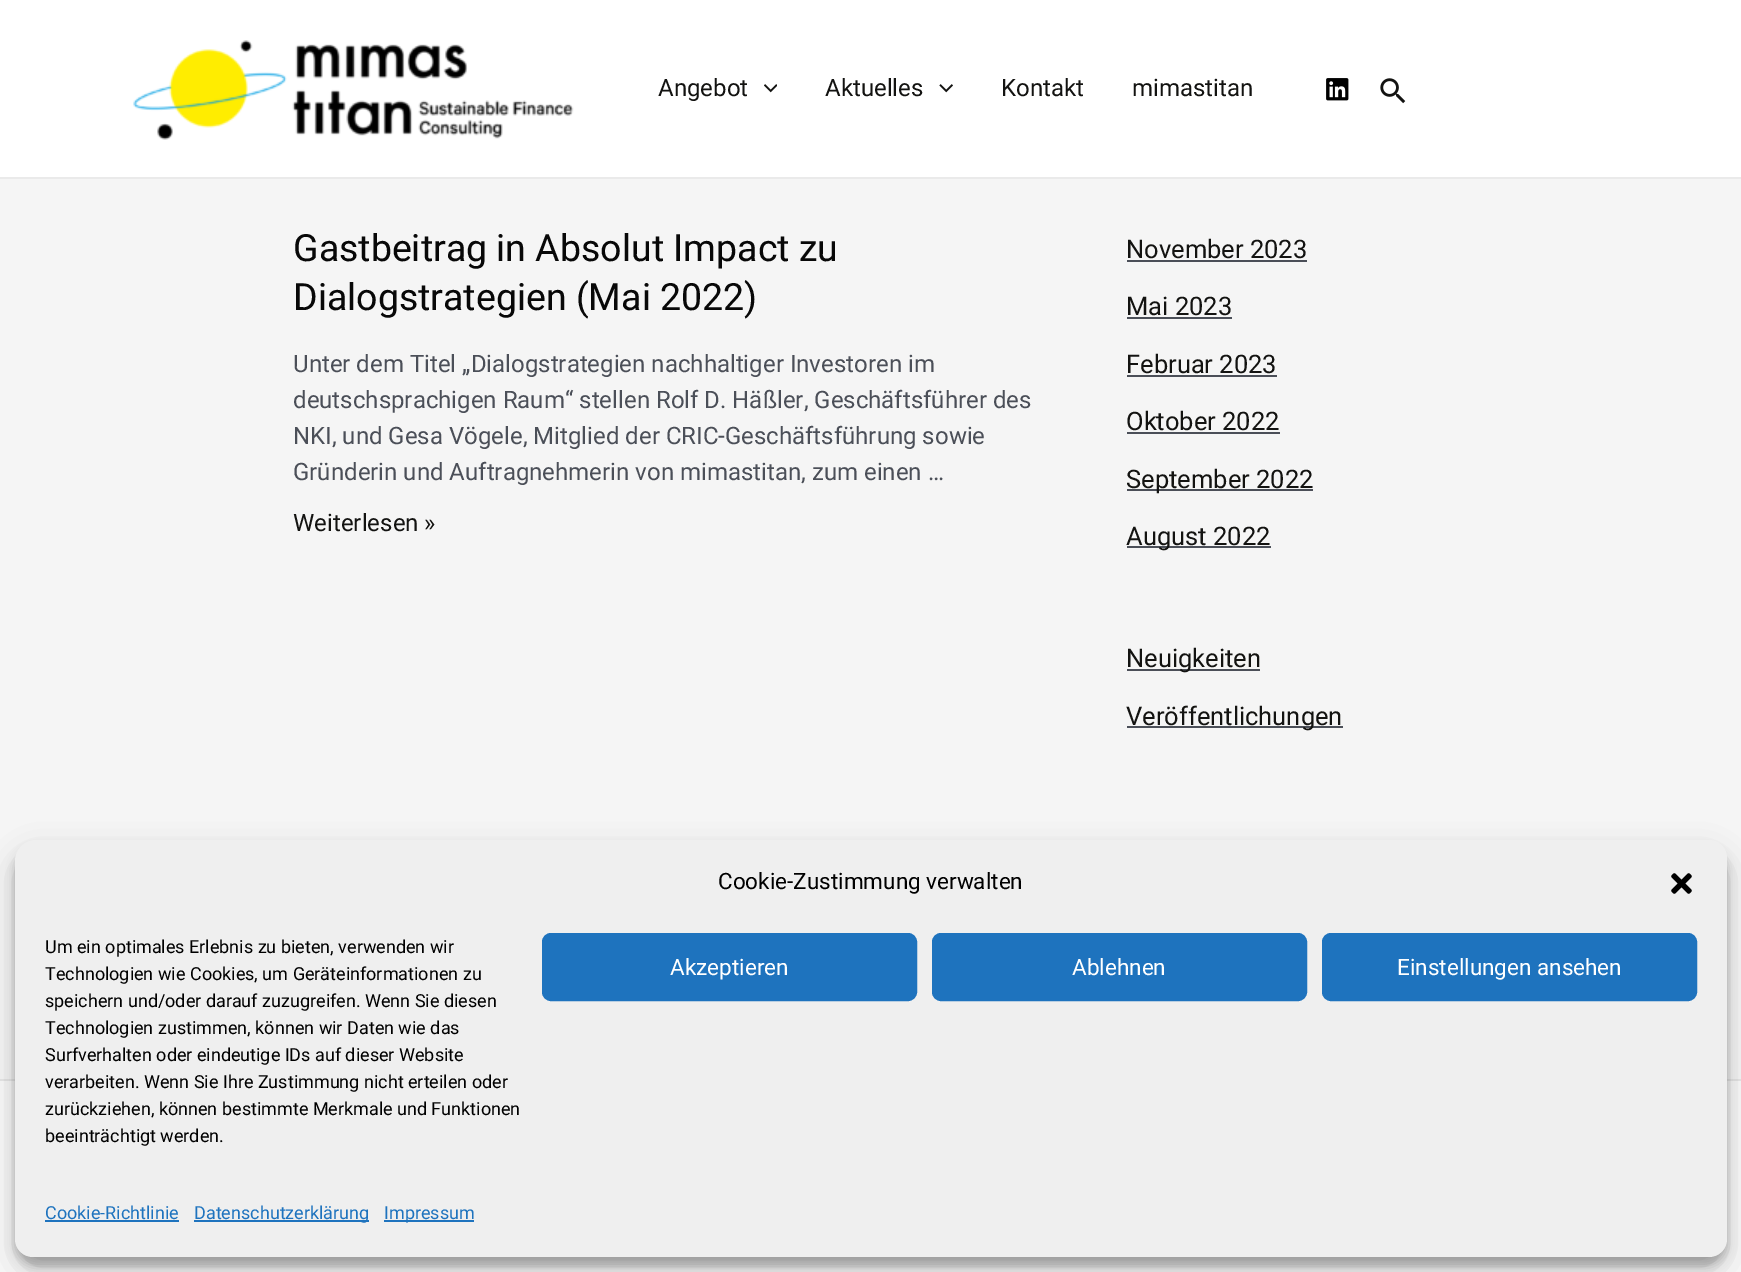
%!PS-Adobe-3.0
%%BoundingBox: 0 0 1741 1272
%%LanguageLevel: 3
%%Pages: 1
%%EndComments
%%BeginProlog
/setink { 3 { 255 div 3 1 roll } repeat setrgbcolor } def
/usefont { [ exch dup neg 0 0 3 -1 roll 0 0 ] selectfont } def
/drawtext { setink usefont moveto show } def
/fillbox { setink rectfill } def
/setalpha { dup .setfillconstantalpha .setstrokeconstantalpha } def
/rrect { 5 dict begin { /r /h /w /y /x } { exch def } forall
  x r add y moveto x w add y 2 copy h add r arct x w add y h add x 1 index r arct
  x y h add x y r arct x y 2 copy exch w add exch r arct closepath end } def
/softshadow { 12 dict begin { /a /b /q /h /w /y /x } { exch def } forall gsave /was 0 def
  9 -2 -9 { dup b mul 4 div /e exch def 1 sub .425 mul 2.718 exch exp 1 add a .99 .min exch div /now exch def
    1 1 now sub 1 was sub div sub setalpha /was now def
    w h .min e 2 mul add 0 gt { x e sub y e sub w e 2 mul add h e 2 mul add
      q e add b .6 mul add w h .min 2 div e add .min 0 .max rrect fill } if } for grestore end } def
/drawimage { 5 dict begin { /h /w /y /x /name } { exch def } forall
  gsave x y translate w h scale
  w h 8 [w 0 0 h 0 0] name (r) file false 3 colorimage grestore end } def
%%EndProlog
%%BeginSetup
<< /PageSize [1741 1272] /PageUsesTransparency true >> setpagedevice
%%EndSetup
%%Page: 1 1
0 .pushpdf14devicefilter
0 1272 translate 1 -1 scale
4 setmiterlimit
0 0 1741 1272 245 245 245 fillbox
0 0 1741 177 255 255 255 fillbox
0 177 1741 2 234 234 234 fillbox
(assets/img1.rgb) 133 40 441 100 drawimage
(Angebot) 658 96 /Roboto-Regular 24 19 19 17 drawtext
(assets/img2.rgb) 764 84 13 9 drawimage
(Aktuelles) 825 96 /Roboto-Regular 24 19 19 17 drawtext
(assets/img3.rgb) 939 84 14 9 drawimage
(Kontakt) 1001 96 /Roboto-Regular 24 19 19 17 drawtext
(mimastitan) 1132 96 /Roboto-Regular 24 19 19 17 drawtext
(assets/img4.rgb) 1326 78 23 23 drawimage
(assets/img5.rgb) 1380 78 26 26 drawimage
(Gastbeitrag in Absolut Impact zu) 293 261 /Roboto-Regular 37.5 8 8 8 drawtext
(Dialogstrategien \(Mai 2022\)) 293 310 /Roboto-Regular 37.5 8 8 8 drawtext
(Unter dem Titel „Dialogstrategien nachhaltiger Investoren im) 293 372 /Roboto-Regular 24 75 79 88 drawtext
(deutschsprachigen Raum“ stellen Rolf D. Häßler, Geschäftsführer des) 293 408 /Roboto-Regular 24 75 79 88 drawtext
(NKI, und Gesa Vögele, Mitglied der CRIC-Geschäftsführung sowie) 293 444 /Roboto-Regular 24 75 79 88 drawtext
(Gründerin und Auftragnehmerin von mimastitan, zum einen …) 293 480 /Roboto-Regular 24 75 79 88 drawtext
(Weiterlesen ») 293 531 /Roboto-Regular 24 19 19 17 drawtext
(November 2023) 1126 258 /Roboto-Regular 25.5 19 19 17 drawtext
1127 260 180 2 75 79 88 fillbox
(Mai 2023) 1126 315 /Roboto-Regular 25.5 19 19 17 drawtext
1127 317 105 2 75 79 88 fillbox
(Februar 2023) 1126 373 /Roboto-Regular 25.5 19 19 17 drawtext
1127 375 150 2 75 79 88 fillbox
(Oktober 2022) 1126 430 /Roboto-Regular 25.5 19 19 17 drawtext
1127 432 153 2 75 79 88 fillbox
1127 489 186 2 75 79 88 fillbox
(September 2022) 1126 488 /Roboto-Regular 25.5 19 19 17 drawtext
1127 546 144 2 75 79 88 fillbox
(August 2022) 1126 545 /Roboto-Regular 25.5 19 19 17 drawtext
1127 669 133 2 75 79 88 fillbox
(Neuigkeiten) 1126 667 /Roboto-Regular 25.5 19 19 17 drawtext
1127 726 216 2 75 79 88 fillbox
(Veröffentlichungen) 1126 725 /Roboto-Regular 25.5 19 19 17 drawtext
0 1081 1741 191 249 249 249 fillbox
0 1079 1741 2 230 230 230 fillbox
0 0 0 setink
15 849 1712 417 21 4.5 0.23 softshadow
15 855 1712 417 21 15 0.19 softshadow
239 239 239 setink
36 840 moveto 1709 840 lineto 1719 840 1727 848 1727 858 curveto 1727 1239 lineto 1727 1249 1719 1257 1709 1257 curveto 33 1257 lineto 23 1257 15 1249 15 1239 curveto 15 861 lineto 15 849.5 24.5 840 36 840 curveto closepath fill
(Cookie-Zustimmung verwalten) 718 889 /Roboto-Regular 22.5 0 0 0 drawtext
(assets/img6.rgb) 1671 873 21 21 drawimage
(Um ein optimales Erlebnis zu bieten, verwenden wir) 45 953 /Roboto-Regular 18 0 0 0 drawtext
(Technologien wie Cookies, um Geräteinformationen zu) 45 980 /Roboto-Regular 18 0 0 0 drawtext
(speichern und/oder darauf zuzugreifen. Wenn Sie diesen) 45 1007 /Roboto-Regular 18 0 0 0 drawtext
(Technologien zustimmen, können wir Daten wie das) 45 1034 /Roboto-Regular 18 0 0 0 drawtext
(Surfverhalten oder eindeutige IDs auf dieser Website) 45 1061 /Roboto-Regular 18 0 0 0 drawtext
(verarbeiten. Wenn Sie Ihre Zustimmung nicht erteilen oder) 45 1088 /Roboto-Regular 18 0 0 0 drawtext
(zurückziehen, können bestimmte Merkmale und Funktionen) 45 1115 /Roboto-Regular 18 0 0 0 drawtext
(beeinträchtigt werden.) 45 1142 /Roboto-Regular 18 0 0 0 drawtext
30 115 190 setink
543 934 373 66 8 rrect gsave fill grestore
2 setlinewidth
stroke
(Akzeptieren) 670 975 /Roboto-Regular 22.5 255 255 255 drawtext
30 115 190 setink
933 934 373 66 8 rrect gsave fill grestore
stroke
(Ablehnen) 1072 975 /Roboto-Regular 22.5 255 255 255 drawtext
30 115 190 setink
1323 934 373 66 8 rrect gsave fill grestore
stroke
(Einstellungen ansehen) 1397 975 /Roboto-Regular 22.5 255 255 255 drawtext
(Cookie-Richtlinie) 45 1219 /Roboto-Regular 18 30 115 190 drawtext
45 1220 134 2 30 115 190 fillbox
194 1220 175 2 30 115 190 fillbox
(Datenschutzerklärung) 194 1219 /Roboto-Regular 18 30 115 190 drawtext
384 1220 90 2 30 115 190 fillbox
(Impressum) 384 1219 /Roboto-Regular 18 30 115 190 drawtext
.poppdf14devicefilter showpage
%%EOF
